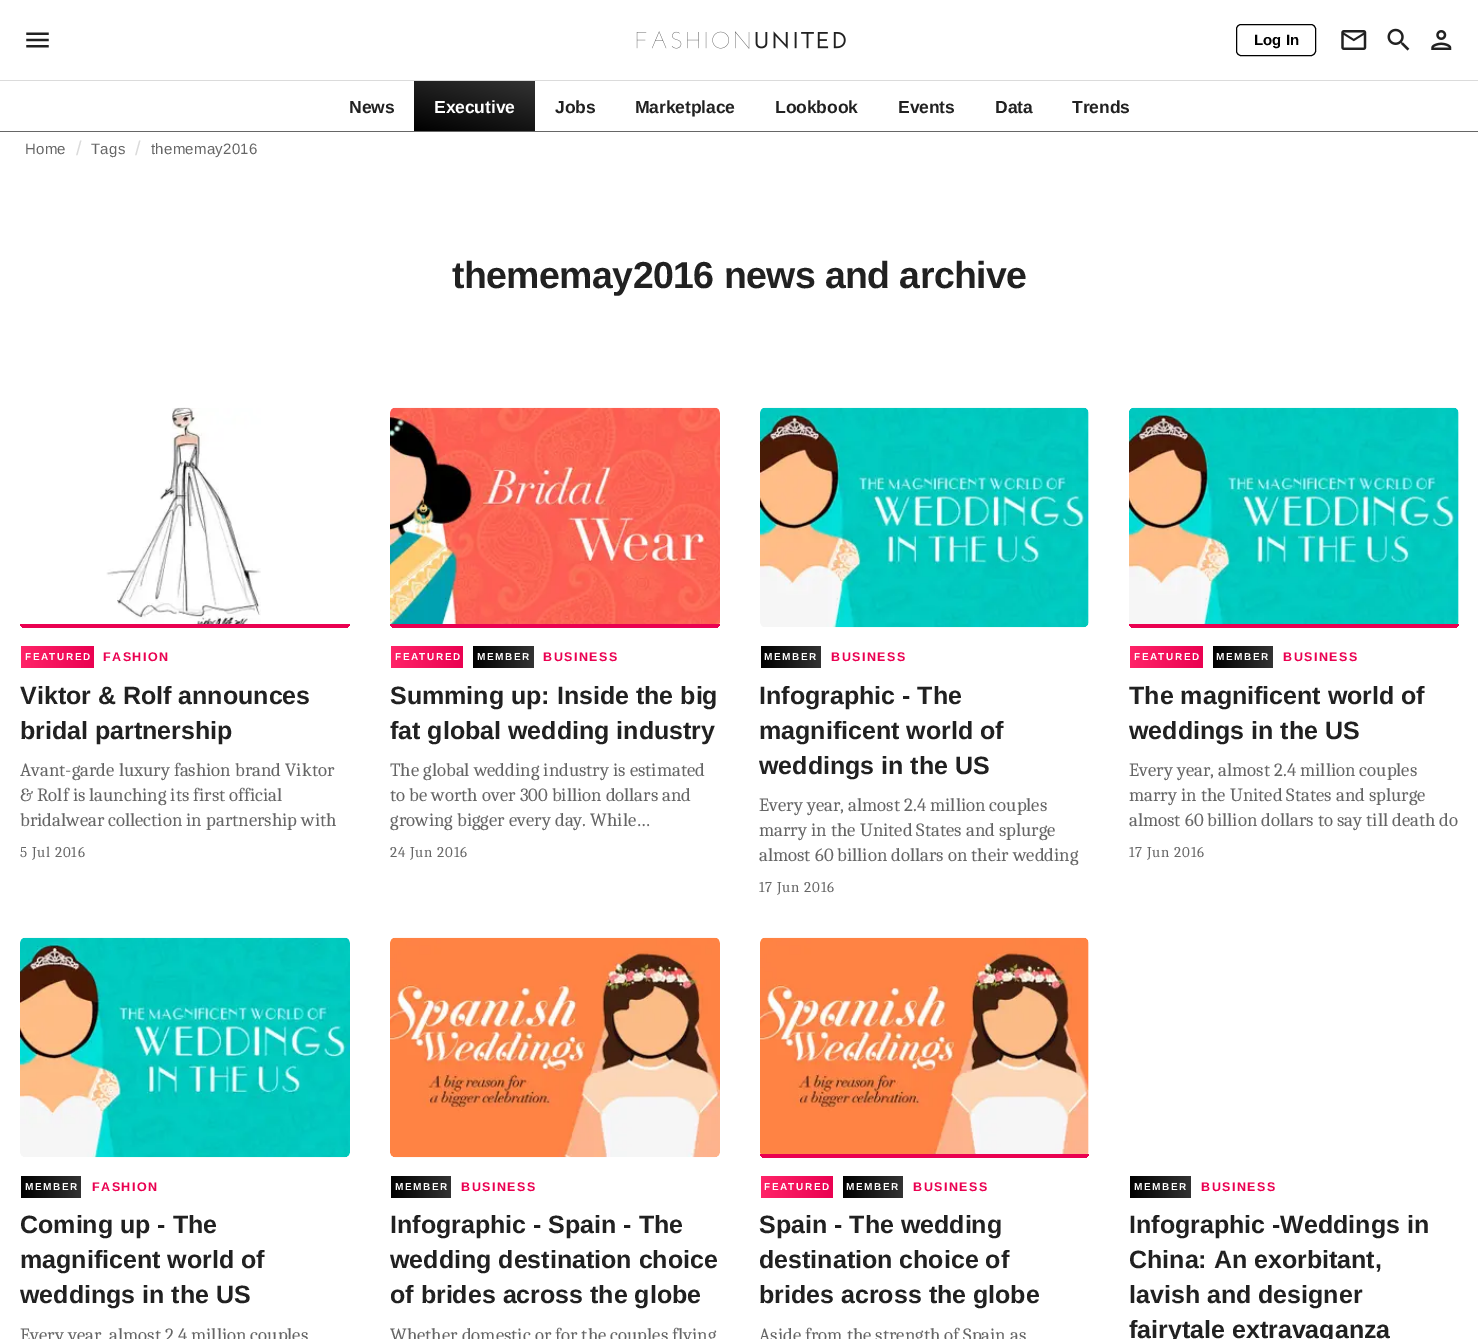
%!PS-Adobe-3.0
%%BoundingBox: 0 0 1478 1339
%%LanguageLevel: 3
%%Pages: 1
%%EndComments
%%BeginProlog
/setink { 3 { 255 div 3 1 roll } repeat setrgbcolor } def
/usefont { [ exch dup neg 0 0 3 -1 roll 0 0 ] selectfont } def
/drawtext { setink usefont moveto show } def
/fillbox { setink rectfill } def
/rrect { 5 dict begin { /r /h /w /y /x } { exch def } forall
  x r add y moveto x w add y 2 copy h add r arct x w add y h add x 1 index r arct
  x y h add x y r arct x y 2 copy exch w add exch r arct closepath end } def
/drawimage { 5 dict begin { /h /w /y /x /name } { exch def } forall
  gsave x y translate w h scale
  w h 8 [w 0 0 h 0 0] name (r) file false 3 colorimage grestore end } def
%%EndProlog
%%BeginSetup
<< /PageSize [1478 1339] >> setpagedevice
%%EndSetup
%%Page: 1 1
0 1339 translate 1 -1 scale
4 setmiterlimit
0 0 1478 1339 255 255 255 fillbox
0 80 1478 1 219 219 219 fillbox
(assets/img1.rgb) 26 32 23 16 drawimage
(assets/img2.rgb) 636 31 210 18 drawimage
0 0 0 setink
1236.5 24.5 79 31 4.5 rrect stroke
(Log In) 1254 45 /LiberationSans-Bold 15 0 0 0 drawtext
(assets/img3.rgb) 1341 30 26 20 drawimage
(assets/img4.rgb) 1387 28 23 23 drawimage
(assets/img5.rgb) 1431 30 21 20 drawimage
0 131 1478 1 102 102 102 fillbox
/LiberationSans-Bold 17.5 usefont
33 33 33 setink
349 113 moveto -0.1 0 (News) ashow
gsave 414 81 moveto 535 81 lineto 535 131 lineto 414 131 lineto closepath clip newpath
<< /ShadingType 2 /ColorSpace /DeviceRGB /Coords [465 144 484 68] /Extend [true true] /Function << /FunctionType 2 /Domain [0 1] /C0 [0 0 0] /C1 [0.2 0.2 0.2] /N 1 >> >> shfill grestore
255 255 255 setink
434 113 moveto -0.1 0 (Executive) ashow
33 33 33 setink
555 113 moveto -0.1 0 (Jobs) ashow
635 113 moveto -0.1 0 (Marketplace) ashow
775 113 moveto -0.1 0 (Lookbook) ashow
898 113 moveto -0.1 0 (Events) ashow
995 113 moveto -0.1 0 (Data) ashow
1072 113 moveto -0.1 0 (Trends) ashow
/LiberationSans-Regular 15 usefont
102 102 102 setink
25 154 moveto 0.25 0 (Home) ashow
(/) 76 155 /LiberationSans-Regular 20 219 219 219 drawtext
/LiberationSans-Regular 15 usefont
102 102 102 setink
91 154 moveto 0.25 0 (Tags) ashow
(/) 135 155 /LiberationSans-Regular 20 219 219 219 drawtext
/LiberationSans-Regular 15 usefont
102 102 102 setink
151 154 moveto 0.25 0 (thememay2016) ashow
/LiberationSans-Bold 37.5 usefont
33 33 33 setink
452 288 moveto -0.6 0 (thememay2016 news and archive) ashow
(assets/img6.rgb) 106 407 155 217 drawimage
gsave
20 408 330 220 5 rrect clip newpath
20 624 330 4 234 1 81 fillbox
grestore
gsave 21 646 73 22 2.5 rrect clip newpath
<< /ShadingType 2 /ColorSpace /DeviceRGB /Coords [21 657 94 657] /Extend [true true] /Function << /FunctionType 2 /Domain [0 1] /C0 [1 0.141 0.408] /C1 [0.918 0.004 0.318] /N 1 >> >> shfill grestore
/LiberationSans-Bold 10 usefont
255 255 255 setink
25 660 moveto 1.5 0 (FEATURED) ashow
/LiberationSans-Bold 12.5 usefont
234 1 81 setink
103 661 moveto 1.5 0 (FASHION) ashow
(Viktor & Rolf announces) 20 704 /LiberationSans-Bold 25 33 33 33 drawtext
(bridal partnership) 20 739 /LiberationSans-Bold 25 33 33 33 drawtext
(Avant-garde luxury fashion brand Viktor) 20 776 /Caladea-Regular 18.75 102 102 102 drawtext
(& Rolf is launching its first official) 20 801 /Caladea-Regular 18.75 102 102 102 drawtext
(bridalwear collection in partnership with) 20 826 /Caladea-Regular 18.75 102 102 102 drawtext
/Caladea-Regular 15 usefont
20 857 moveto 0.75 0 (5 Jul 2016) ashow
(assets/img7.rgb) 390 407 330 221 drawimage
gsave
390 408 330 220 5 rrect clip newpath
390 624 330 4 234 1 81 fillbox
grestore
gsave 391 646 72 22 2.5 rrect clip newpath
<< /ShadingType 2 /ColorSpace /DeviceRGB /Coords [391 657 463 657] /Extend [true true] /Function << /FunctionType 2 /Domain [0 1] /C0 [1 0.141 0.408] /C1 [0.918 0.004 0.318] /N 1 >> >> shfill grestore
/LiberationSans-Bold 10 usefont
255 255 255 setink
395 660 moveto 1.5 0 (FEATURED) ashow
gsave 473 646 61 22 2.5 rrect clip newpath
<< /ShadingType 2 /ColorSpace /DeviceRGB /Coords [473 657 534 657] /Extend [true true] /Function << /FunctionType 2 /Domain [0 1] /C0 [0 0 0] /C1 [0.2 0.2 0.2] /N 1 >> >> shfill grestore
477 660 moveto 1.5 0 (MEMBER) ashow
/LiberationSans-Bold 12.5 usefont
234 1 81 setink
543 661 moveto 1.5 0 (BUSINESS) ashow
(Summing up: Inside the big) 390 704 /LiberationSans-Bold 25 33 33 33 drawtext
(fat global wedding industry) 390 739 /LiberationSans-Bold 25 33 33 33 drawtext
(The global wedding industry is estimated) 390 776 /Caladea-Regular 18.75 102 102 102 drawtext
(to be worth over 300 billion dollars and) 390 801 /Caladea-Regular 18.75 102 102 102 drawtext
(growing bigger every day. While…) 390 826 /Caladea-Regular 18.75 102 102 102 drawtext
/Caladea-Regular 15 usefont
390 857 moveto 0.75 0 (24 Jun 2016) ashow
(assets/img8.rgb) 760 407 329 221 drawimage
gsave 761 646 60 22 2.5 rrect clip newpath
<< /ShadingType 2 /ColorSpace /DeviceRGB /Coords [761 657 821 657] /Extend [true true] /Function << /FunctionType 2 /Domain [0 1] /C0 [0 0 0] /C1 [0.2 0.2 0.2] /N 1 >> >> shfill grestore
/LiberationSans-Bold 10 usefont
255 255 255 setink
764 660 moveto 1.5 0 (MEMBER) ashow
/LiberationSans-Bold 12.5 usefont
234 1 81 setink
831 661 moveto 1.5 0 (BUSINESS) ashow
(Infographic - The) 759 704 /LiberationSans-Bold 25 33 33 33 drawtext
(magnificent world of) 759 739 /LiberationSans-Bold 25 33 33 33 drawtext
(weddings in the US) 759 774 /LiberationSans-Bold 25 33 33 33 drawtext
(Every year, almost 2.4 million couples) 759 811 /Caladea-Regular 18.75 102 102 102 drawtext
(marry in the United States and splurge) 759 836 /Caladea-Regular 18.75 102 102 102 drawtext
(almost 60 billion dollars on their wedding) 759 861 /Caladea-Regular 18.75 102 102 102 drawtext
/Caladea-Regular 15 usefont
759 892 moveto 0.75 0 (17 Jun 2016) ashow
(assets/img9.rgb) 1129 407 330 221 drawimage
gsave
1129 408 330 220 5 rrect clip newpath
1129 624 330 4 234 1 81 fillbox
grestore
gsave 1130 646 73 22 2.5 rrect clip newpath
<< /ShadingType 2 /ColorSpace /DeviceRGB /Coords [1130 657 1203 657] /Extend [true true] /Function << /FunctionType 2 /Domain [0 1] /C0 [1 0.141 0.408] /C1 [0.918 0.004 0.318] /N 1 >> >> shfill grestore
/LiberationSans-Bold 10 usefont
255 255 255 setink
1134 660 moveto 1.5 0 (FEATURED) ashow
gsave 1213 646 60 22 2.5 rrect clip newpath
<< /ShadingType 2 /ColorSpace /DeviceRGB /Coords [1213 657 1273 657] /Extend [true true] /Function << /FunctionType 2 /Domain [0 1] /C0 [0 0 0] /C1 [0.2 0.2 0.2] /N 1 >> >> shfill grestore
1216 660 moveto 1.5 0 (MEMBER) ashow
/LiberationSans-Bold 12.5 usefont
234 1 81 setink
1283 661 moveto 1.5 0 (BUSINESS) ashow
(The magnificent world of) 1129 704 /LiberationSans-Bold 25 33 33 33 drawtext
(weddings in the US) 1129 739 /LiberationSans-Bold 25 33 33 33 drawtext
(Every year, almost 2.4 million couples) 1129 776 /Caladea-Regular 18.75 102 102 102 drawtext
(marry in the United States and splurge) 1129 801 /Caladea-Regular 18.75 102 102 102 drawtext
(almost 60 billion dollars to say till death do) 1129 826 /Caladea-Regular 18.75 102 102 102 drawtext
/Caladea-Regular 15 usefont
1129 857 moveto 0.75 0 (17 Jun 2016) ashow
(assets/img10.rgb) 20 937 330 221 drawimage
gsave 21 1176 60 22 2.5 rrect clip newpath
<< /ShadingType 2 /ColorSpace /DeviceRGB /Coords [21 1187 81 1187] /Extend [true true] /Function << /FunctionType 2 /Domain [0 1] /C0 [0 0 0] /C1 [0.2 0.2 0.2] /N 1 >> >> shfill grestore
/LiberationSans-Bold 10 usefont
255 255 255 setink
25 1190 moveto 1.5 0 (MEMBER) ashow
/LiberationSans-Bold 12.5 usefont
234 1 81 setink
92 1191 moveto 1.5 0 (FASHION) ashow
(Coming up - The) 20 1233 /LiberationSans-Bold 25 33 33 33 drawtext
(magnificent world of) 20 1268 /LiberationSans-Bold 25 33 33 33 drawtext
(weddings in the US) 20 1303 /LiberationSans-Bold 25 33 33 33 drawtext
(Every year, almost 2.4 million couples) 20 1341 /Caladea-Regular 18.75 102 102 102 drawtext
(assets/img11.rgb) 390 937 330 221 drawimage
gsave 391 1176 60 22 2.5 rrect clip newpath
<< /ShadingType 2 /ColorSpace /DeviceRGB /Coords [391 1187 451 1187] /Extend [true true] /Function << /FunctionType 2 /Domain [0 1] /C0 [0 0 0] /C1 [0.2 0.2 0.2] /N 1 >> >> shfill grestore
/LiberationSans-Bold 10 usefont
255 255 255 setink
395 1190 moveto 1.5 0 (MEMBER) ashow
/LiberationSans-Bold 12.5 usefont
234 1 81 setink
461 1191 moveto 1.5 0 (BUSINESS) ashow
(Infographic - Spain - The) 390 1233 /LiberationSans-Bold 25 33 33 33 drawtext
(wedding destination choice) 390 1268 /LiberationSans-Bold 25 33 33 33 drawtext
(of brides across the globe) 390 1303 /LiberationSans-Bold 25 33 33 33 drawtext
(Whether domestic or for the couples flying) 390 1341 /Caladea-Regular 18.75 102 102 102 drawtext
(assets/img12.rgb) 760 937 329 221 drawimage
gsave
760 938 329 220 5 rrect clip newpath
760 1154 329 4 234 1 81 fillbox
grestore
gsave 761 1176 72 22 2.5 rrect clip newpath
<< /ShadingType 2 /ColorSpace /DeviceRGB /Coords [761 1187 833 1187] /Extend [true true] /Function << /FunctionType 2 /Domain [0 1] /C0 [1 0.141 0.408] /C1 [0.918 0.004 0.318] /N 1 >> >> shfill grestore
/LiberationSans-Bold 10 usefont
255 255 255 setink
764 1190 moveto 1.5 0 (FEATURED) ashow
gsave 843 1176 60 22 2.5 rrect clip newpath
<< /ShadingType 2 /ColorSpace /DeviceRGB /Coords [843 1187 903 1187] /Extend [true true] /Function << /FunctionType 2 /Domain [0 1] /C0 [0 0 0] /C1 [0.2 0.2 0.2] /N 1 >> >> shfill grestore
846 1190 moveto 1.5 0 (MEMBER) ashow
/LiberationSans-Bold 12.5 usefont
234 1 81 setink
913 1191 moveto 1.5 0 (BUSINESS) ashow
(Spain - The wedding) 759 1233 /LiberationSans-Bold 25 33 33 33 drawtext
(destination choice of) 759 1268 /LiberationSans-Bold 25 33 33 33 drawtext
(brides across the globe) 759 1303 /LiberationSans-Bold 25 33 33 33 drawtext
(Aside from the strength of Spain as) 759 1341 /Caladea-Regular 18.75 102 102 102 drawtext
gsave 1130 1176 61 22 2.5 rrect clip newpath
<< /ShadingType 2 /ColorSpace /DeviceRGB /Coords [1130 1187 1191 1187] /Extend [true true] /Function << /FunctionType 2 /Domain [0 1] /C0 [0 0 0] /C1 [0.2 0.2 0.2] /N 1 >> >> shfill grestore
/LiberationSans-Bold 10 usefont
255 255 255 setink
1134 1190 moveto 1.5 0 (MEMBER) ashow
/LiberationSans-Bold 12.5 usefont
234 1 81 setink
1201 1191 moveto 1.5 0 (BUSINESS) ashow
(Infographic -Weddings in) 1129 1233 /LiberationSans-Bold 25 33 33 33 drawtext
(China: An exorbitant,) 1129 1268 /LiberationSans-Bold 25 33 33 33 drawtext
(lavish and designer) 1129 1303 /LiberationSans-Bold 25 33 33 33 drawtext
(fairytale extravaganza) 1129 1338 /LiberationSans-Bold 25 33 33 33 drawtext
showpage
%%EOF
